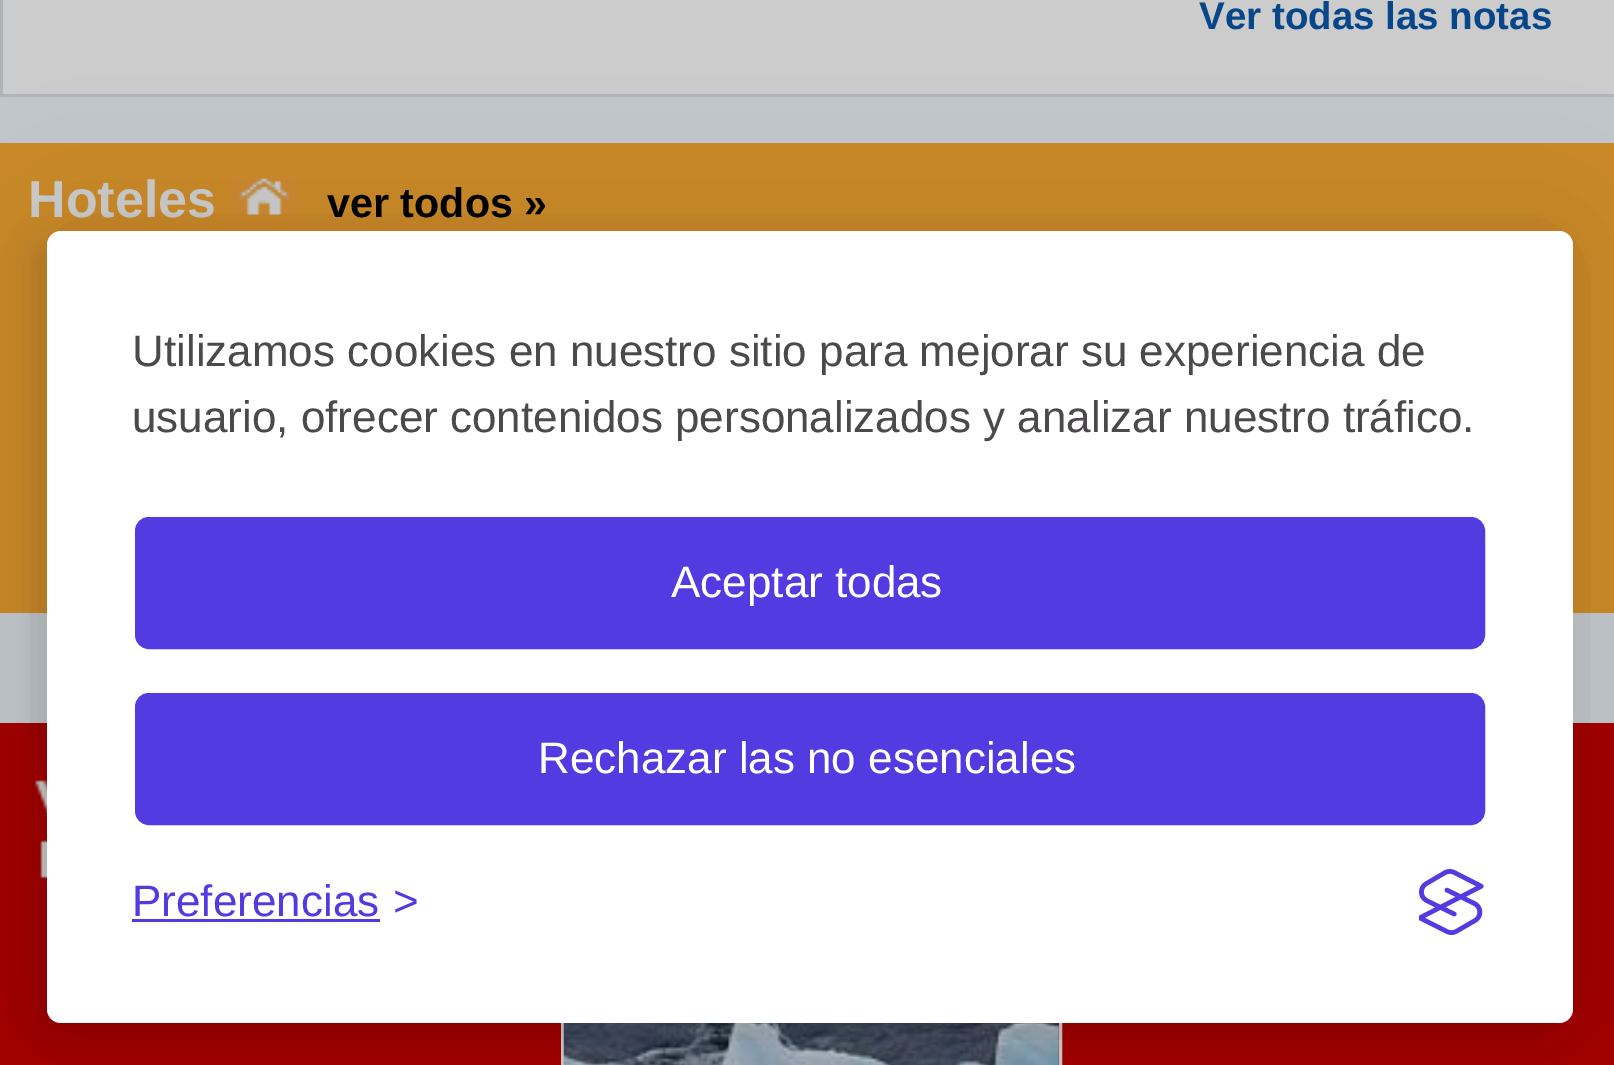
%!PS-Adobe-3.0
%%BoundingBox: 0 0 1614 1065
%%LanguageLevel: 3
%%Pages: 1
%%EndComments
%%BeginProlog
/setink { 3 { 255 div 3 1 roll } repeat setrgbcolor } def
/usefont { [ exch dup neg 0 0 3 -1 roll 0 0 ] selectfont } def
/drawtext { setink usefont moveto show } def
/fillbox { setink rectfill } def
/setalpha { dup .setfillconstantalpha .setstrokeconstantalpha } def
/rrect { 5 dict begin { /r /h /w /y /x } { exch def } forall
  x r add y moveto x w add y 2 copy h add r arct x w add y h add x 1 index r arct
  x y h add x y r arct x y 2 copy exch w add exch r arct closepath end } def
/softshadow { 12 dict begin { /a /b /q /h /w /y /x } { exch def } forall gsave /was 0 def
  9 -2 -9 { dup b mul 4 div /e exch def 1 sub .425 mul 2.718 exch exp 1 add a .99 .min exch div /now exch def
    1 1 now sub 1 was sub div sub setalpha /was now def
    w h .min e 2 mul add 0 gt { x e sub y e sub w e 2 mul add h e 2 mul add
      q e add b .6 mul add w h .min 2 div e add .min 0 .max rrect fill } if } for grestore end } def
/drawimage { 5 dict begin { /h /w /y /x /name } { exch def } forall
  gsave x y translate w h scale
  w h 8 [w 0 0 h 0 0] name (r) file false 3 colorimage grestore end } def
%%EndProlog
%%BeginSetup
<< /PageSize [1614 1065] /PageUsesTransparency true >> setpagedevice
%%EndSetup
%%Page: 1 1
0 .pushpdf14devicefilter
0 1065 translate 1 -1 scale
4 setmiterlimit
0 0 1614 1065 194 199 204 fillbox
3 0 1611 94 204 204 204 fillbox
0 94 1614 3 174 180 184 fillbox
0 0 3 96 174 180 184 fillbox
(Ver todas las notas) 1199 29 /LiberationSans-Bold 38.5 8 70 138 drawtext
0 143 1614 470 202 138 39 fillbox
(Hoteles) 28 217 /LiberationSans-Bold 52 204 204 204 drawtext
(assets/img1.rgb) 231 176 66 39 drawimage
(ver todos ») 327 217 /LiberationSans-Bold 41.25 0 0 0 drawtext
0 723 1614 342 163 0 0 fillbox
(assets/img2.rgb) 35 758 12 132 drawimage
204 204 204 setink
3 setlinewidth
562.5 958.5 498 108 rectstroke
(assets/img3.rgb) 563 1023 496 42 drawimage
0 0 0 setink
47 231 1526 792 14 69 0.1 softshadow
gsave
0 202 moveto 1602 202 lineto 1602 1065 lineto 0 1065 lineto closepath 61 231 moveto 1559 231 lineto 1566.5 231 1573 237.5 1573 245 curveto 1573 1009 lineto 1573 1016.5 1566.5 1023 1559 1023 curveto 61 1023 lineto 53.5 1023 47 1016.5 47 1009 curveto 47 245 lineto 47 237.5 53.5 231 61 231 curveto closepath eoclip newpath
33 245 1526 792 14 14 0.07 softshadow
grestore
255 255 255 setink
47 231 1526 792 14 rrect fill
(Utilizamos cookies en nuestro sitio para mejorar su experiencia de) 132 366 /LiberationSans-Regular 44 75 73 75 drawtext
(usuario, ofrecer contenidos personalizados y analizar nuestro tráfico.) 132 432 /LiberationSans-Regular 44 75 73 75 drawtext
83 59 226 setink
138 520 1344 126 11 rrect gsave fill grestore
6 setlinewidth
stroke
(Aceptar todas) 671 597 /LiberationSans-Regular 44 255 255 255 drawtext
83 59 226 setink
138 696 1344 126 11 rrect gsave fill grestore
stroke
(Rechazar las no esenciales) 538 773 /LiberationSans-Regular 44 255 255 255 drawtext
(Preferencias) 132 916 /LiberationSans-Regular 44 83 59 226 drawtext
132 919 248 3 83 59 226 fillbox
(>) 393 916 /LiberationSans-Regular 44 83 59 226 drawtext
(assets/img4.rgb) 1419 869 65 66 drawimage
.poppdf14devicefilter showpage
%%EOF
